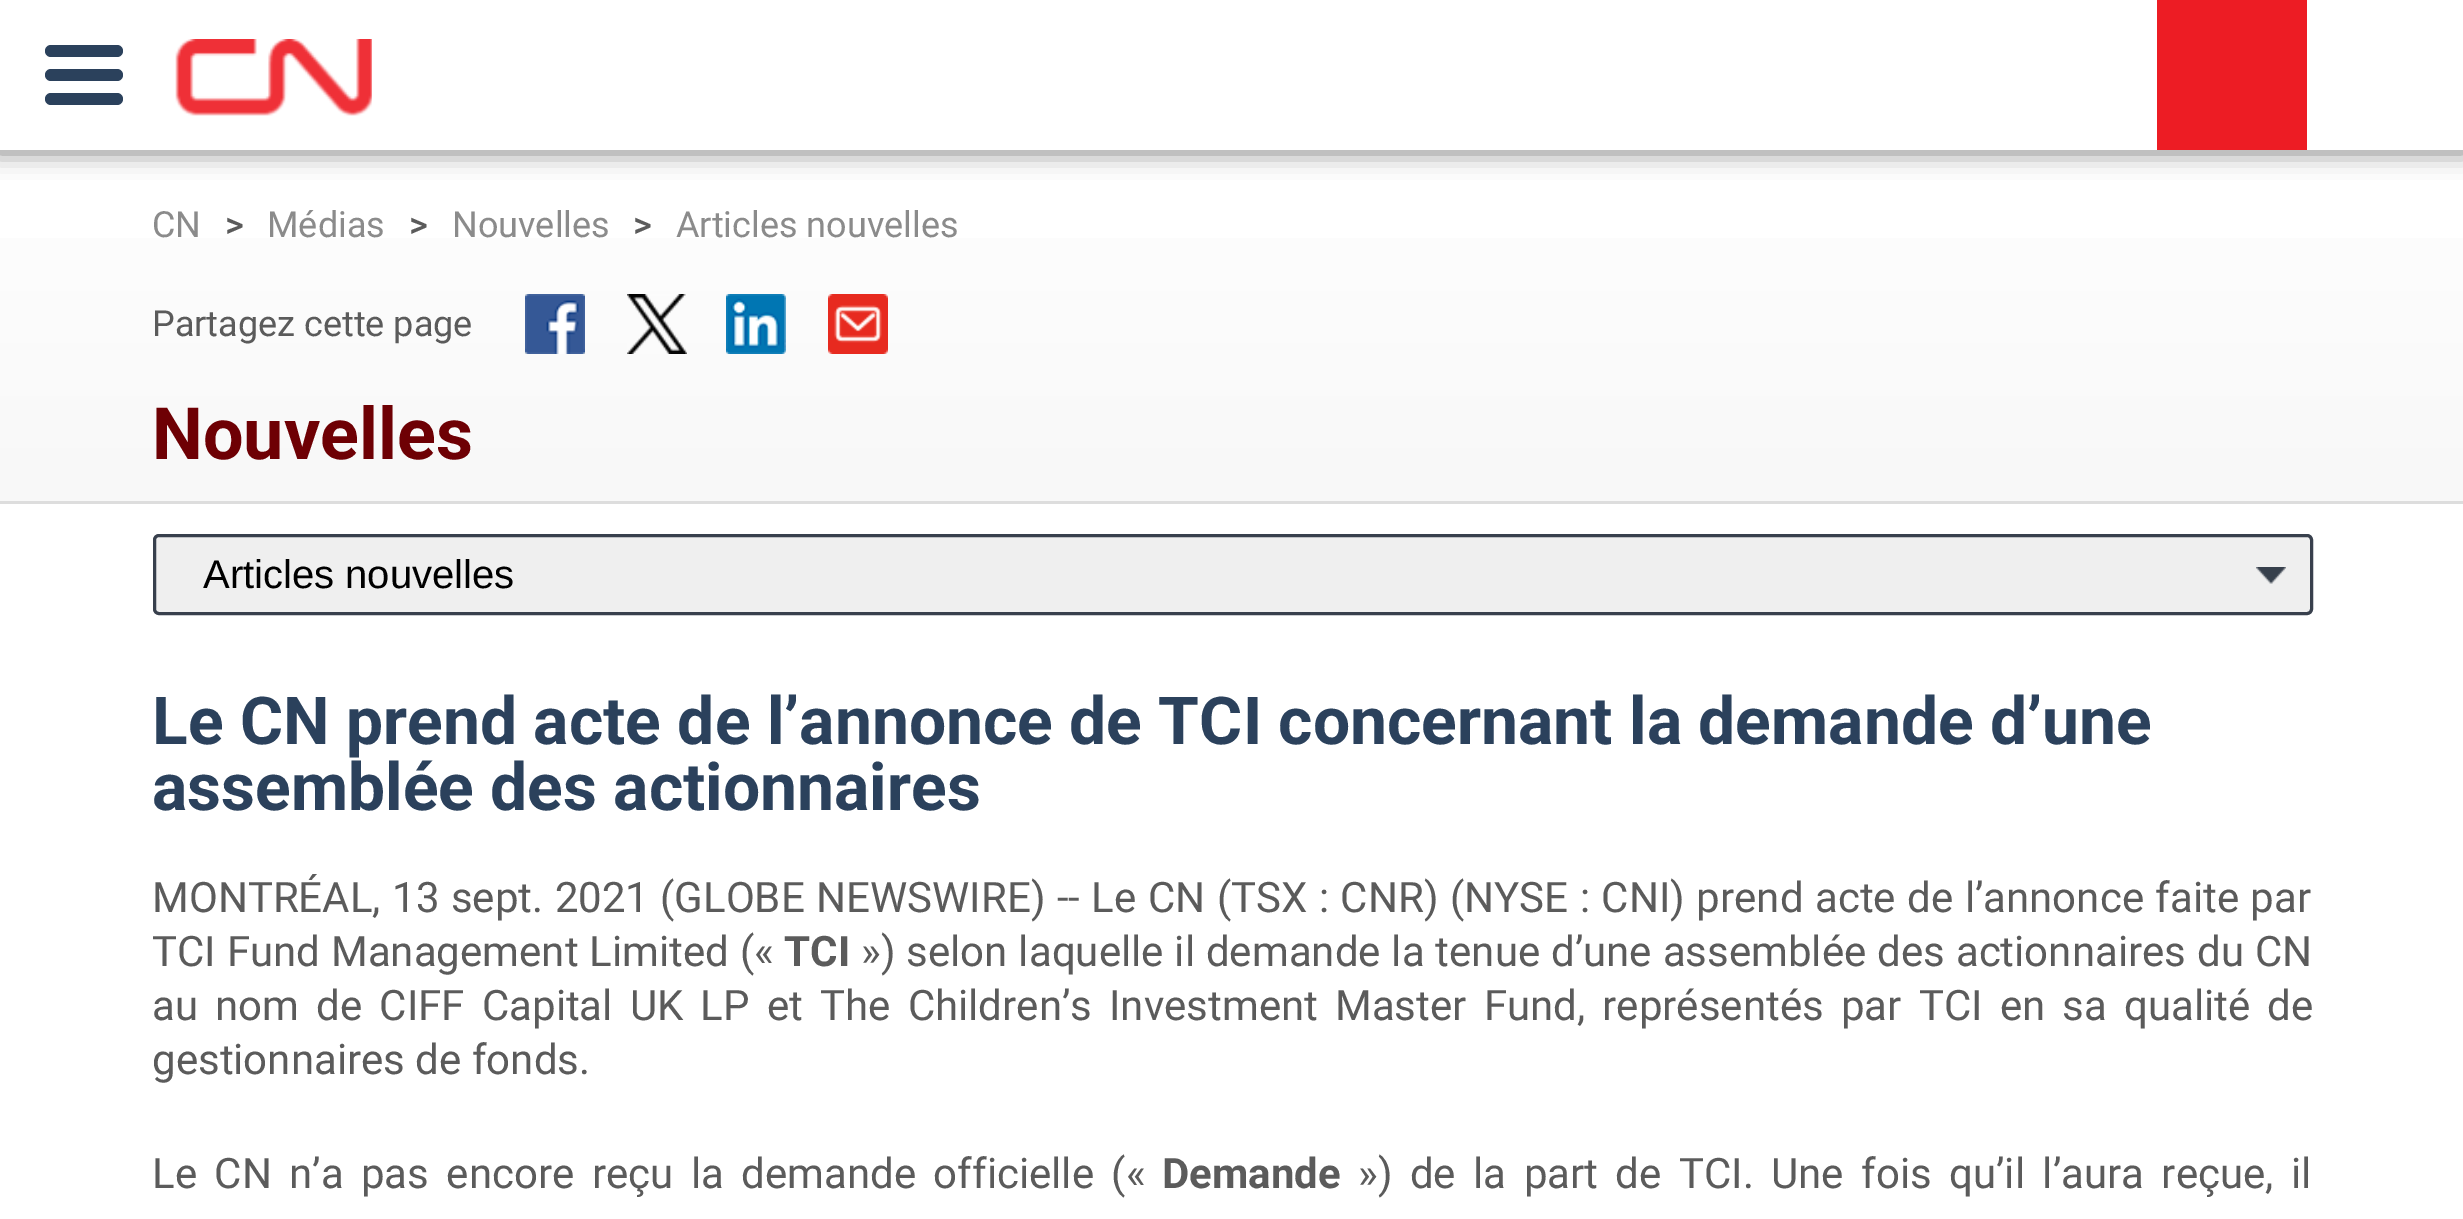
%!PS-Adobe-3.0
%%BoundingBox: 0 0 2463 1219
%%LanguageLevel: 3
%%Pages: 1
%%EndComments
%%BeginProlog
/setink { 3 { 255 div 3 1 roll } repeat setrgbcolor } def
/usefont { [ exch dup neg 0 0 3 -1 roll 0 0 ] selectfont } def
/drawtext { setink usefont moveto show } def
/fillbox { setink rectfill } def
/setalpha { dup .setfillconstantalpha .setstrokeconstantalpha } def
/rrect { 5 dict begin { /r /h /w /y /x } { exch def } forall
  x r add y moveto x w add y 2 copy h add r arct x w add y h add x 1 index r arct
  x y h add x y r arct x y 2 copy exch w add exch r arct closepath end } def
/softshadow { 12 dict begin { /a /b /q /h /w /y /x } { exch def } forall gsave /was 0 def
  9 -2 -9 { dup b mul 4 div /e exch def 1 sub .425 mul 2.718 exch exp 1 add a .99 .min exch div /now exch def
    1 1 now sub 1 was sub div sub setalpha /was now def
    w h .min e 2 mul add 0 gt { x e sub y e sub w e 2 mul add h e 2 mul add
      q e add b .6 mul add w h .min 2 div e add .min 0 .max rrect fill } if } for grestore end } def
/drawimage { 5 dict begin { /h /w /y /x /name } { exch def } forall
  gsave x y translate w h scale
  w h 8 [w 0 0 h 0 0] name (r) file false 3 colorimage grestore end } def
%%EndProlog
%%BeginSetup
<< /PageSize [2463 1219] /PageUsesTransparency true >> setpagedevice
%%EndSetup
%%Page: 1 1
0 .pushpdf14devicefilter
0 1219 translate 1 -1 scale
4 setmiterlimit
0 0 2463 1219 255 255 255 fillbox
127 127 127 setink
-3 -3 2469 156 0 12 1 softshadow
0 0 2463 150 255 255 255 fillbox
43 65 92 setink
45 69 78 12 6 rrect fill
45 45 78 12 6 rrect fill
45 93 78 12 6 rrect fill
(assets/img1.rgb) 175 39 197 77 drawimage
2157 0 150 150 237 28 36 fillbox
gsave 0 238 moveto 2463 238 lineto 2463 501 lineto 0 501 lineto closepath clip newpath
<< /ShadingType 2 /ColorSpace /DeviceRGB /Coords [1232 150 1232 501] /Extend [true true] /Function << /FunctionType 2 /Domain [0 1] /C0 [0.996 0.996 0.996] /C1 [0.973 0.973 0.973] /N 1 >> >> shfill grestore
0 501 2463 3 221 221 221 fillbox
(CN) 152 237 /Roboto-Regular 36 139 139 139 drawtext
(>) 225 237 /Roboto-Medium 36 91 91 91 drawtext
(Médias) 267 237 /Roboto-Regular 36 139 139 139 drawtext
(>) 409 237 /Roboto-Medium 36 91 91 91 drawtext
(Nouvelles) 452 237 /Roboto-Regular 36 139 139 139 drawtext
(>) 633 237 /Roboto-Medium 36 91 91 91 drawtext
(Articles nouvelles) 676 237 /Roboto-Regular 36 139 139 139 drawtext
(Partagez cette page) 152 336 /Roboto-Regular 36 91 91 91 drawtext
(assets/img2.rgb) 525 294 60 60 drawimage
(assets/img3.rgb) 627 294 60 60 drawimage
(assets/img4.rgb) 726 294 60 60 drawimage
(assets/img5.rgb) 828 294 60 60 drawimage
(Nouvelles) 152 459 /Roboto-Bold 72 110 0 4 drawtext
239 239 239 setink
153 534 2160 81 6 rrect fill
(assets/img6.rgb) 2256 567 30 17 drawimage
56 64 77 setink
3 setlinewidth
154.5 535.5 2157 78 4.5 rrect stroke
(Articles nouvelles) 203 588 /LiberationSans-Regular 40 0 0 0 drawtext
(Le CN prend acte de l’annonce de TCI concernant la demande d’une) 152 744 /Roboto-Bold 66 43 65 92 drawtext
(assemblée des actionnaires) 152 810 /Roboto-Bold 66 43 65 92 drawtext
(MONTRÉAL,) 152 912 /Roboto-Regular 42 91 91 91 drawtext
392 912 moveto 1.1 0 32 (13 sept. 2021) widthshow
660 912 moveto 1.1 0 32 (\(GLOBE NEWSWIRE\) -- Le CN \(TSX : CNR\) \(NYSE : CNI\) prend acte de l’annonce faite par) widthshow
152 966 moveto 0.5 0 32 (TCI Fund Management Limited \(«) widthshow
(TCI) 784 966 /Roboto-Bold 42 91 91 91 drawtext
/Roboto-Regular 42 usefont
861 966 moveto 0.5 0 32 (»\) selon laquelle il demande la tenue d’une assemblée des actionnaires du CN) widthshow
152 1020 moveto 6.75 0 32 (au nom de CIFF Capital UK LP et The Children’s Investment Master Fund, représentés par TCI en sa qualité de) widthshow
(gestionnaires de fonds.) 152 1074 /Roboto-Regular 42 91 91 91 drawtext
152 1188 moveto 7 0 32 (Le CN n’a pas encore reçu la demande officielle \(«) widthshow
(Demande) 1162 1188 /Roboto-Bold 42 91 91 91 drawtext
/Roboto-Regular 42 usefont
1358 1188 moveto 7 0 32 (»\) de la part de TCI. Une fois qu’il l’aura reçue, il) widthshow
.poppdf14devicefilter showpage
%%EOF
